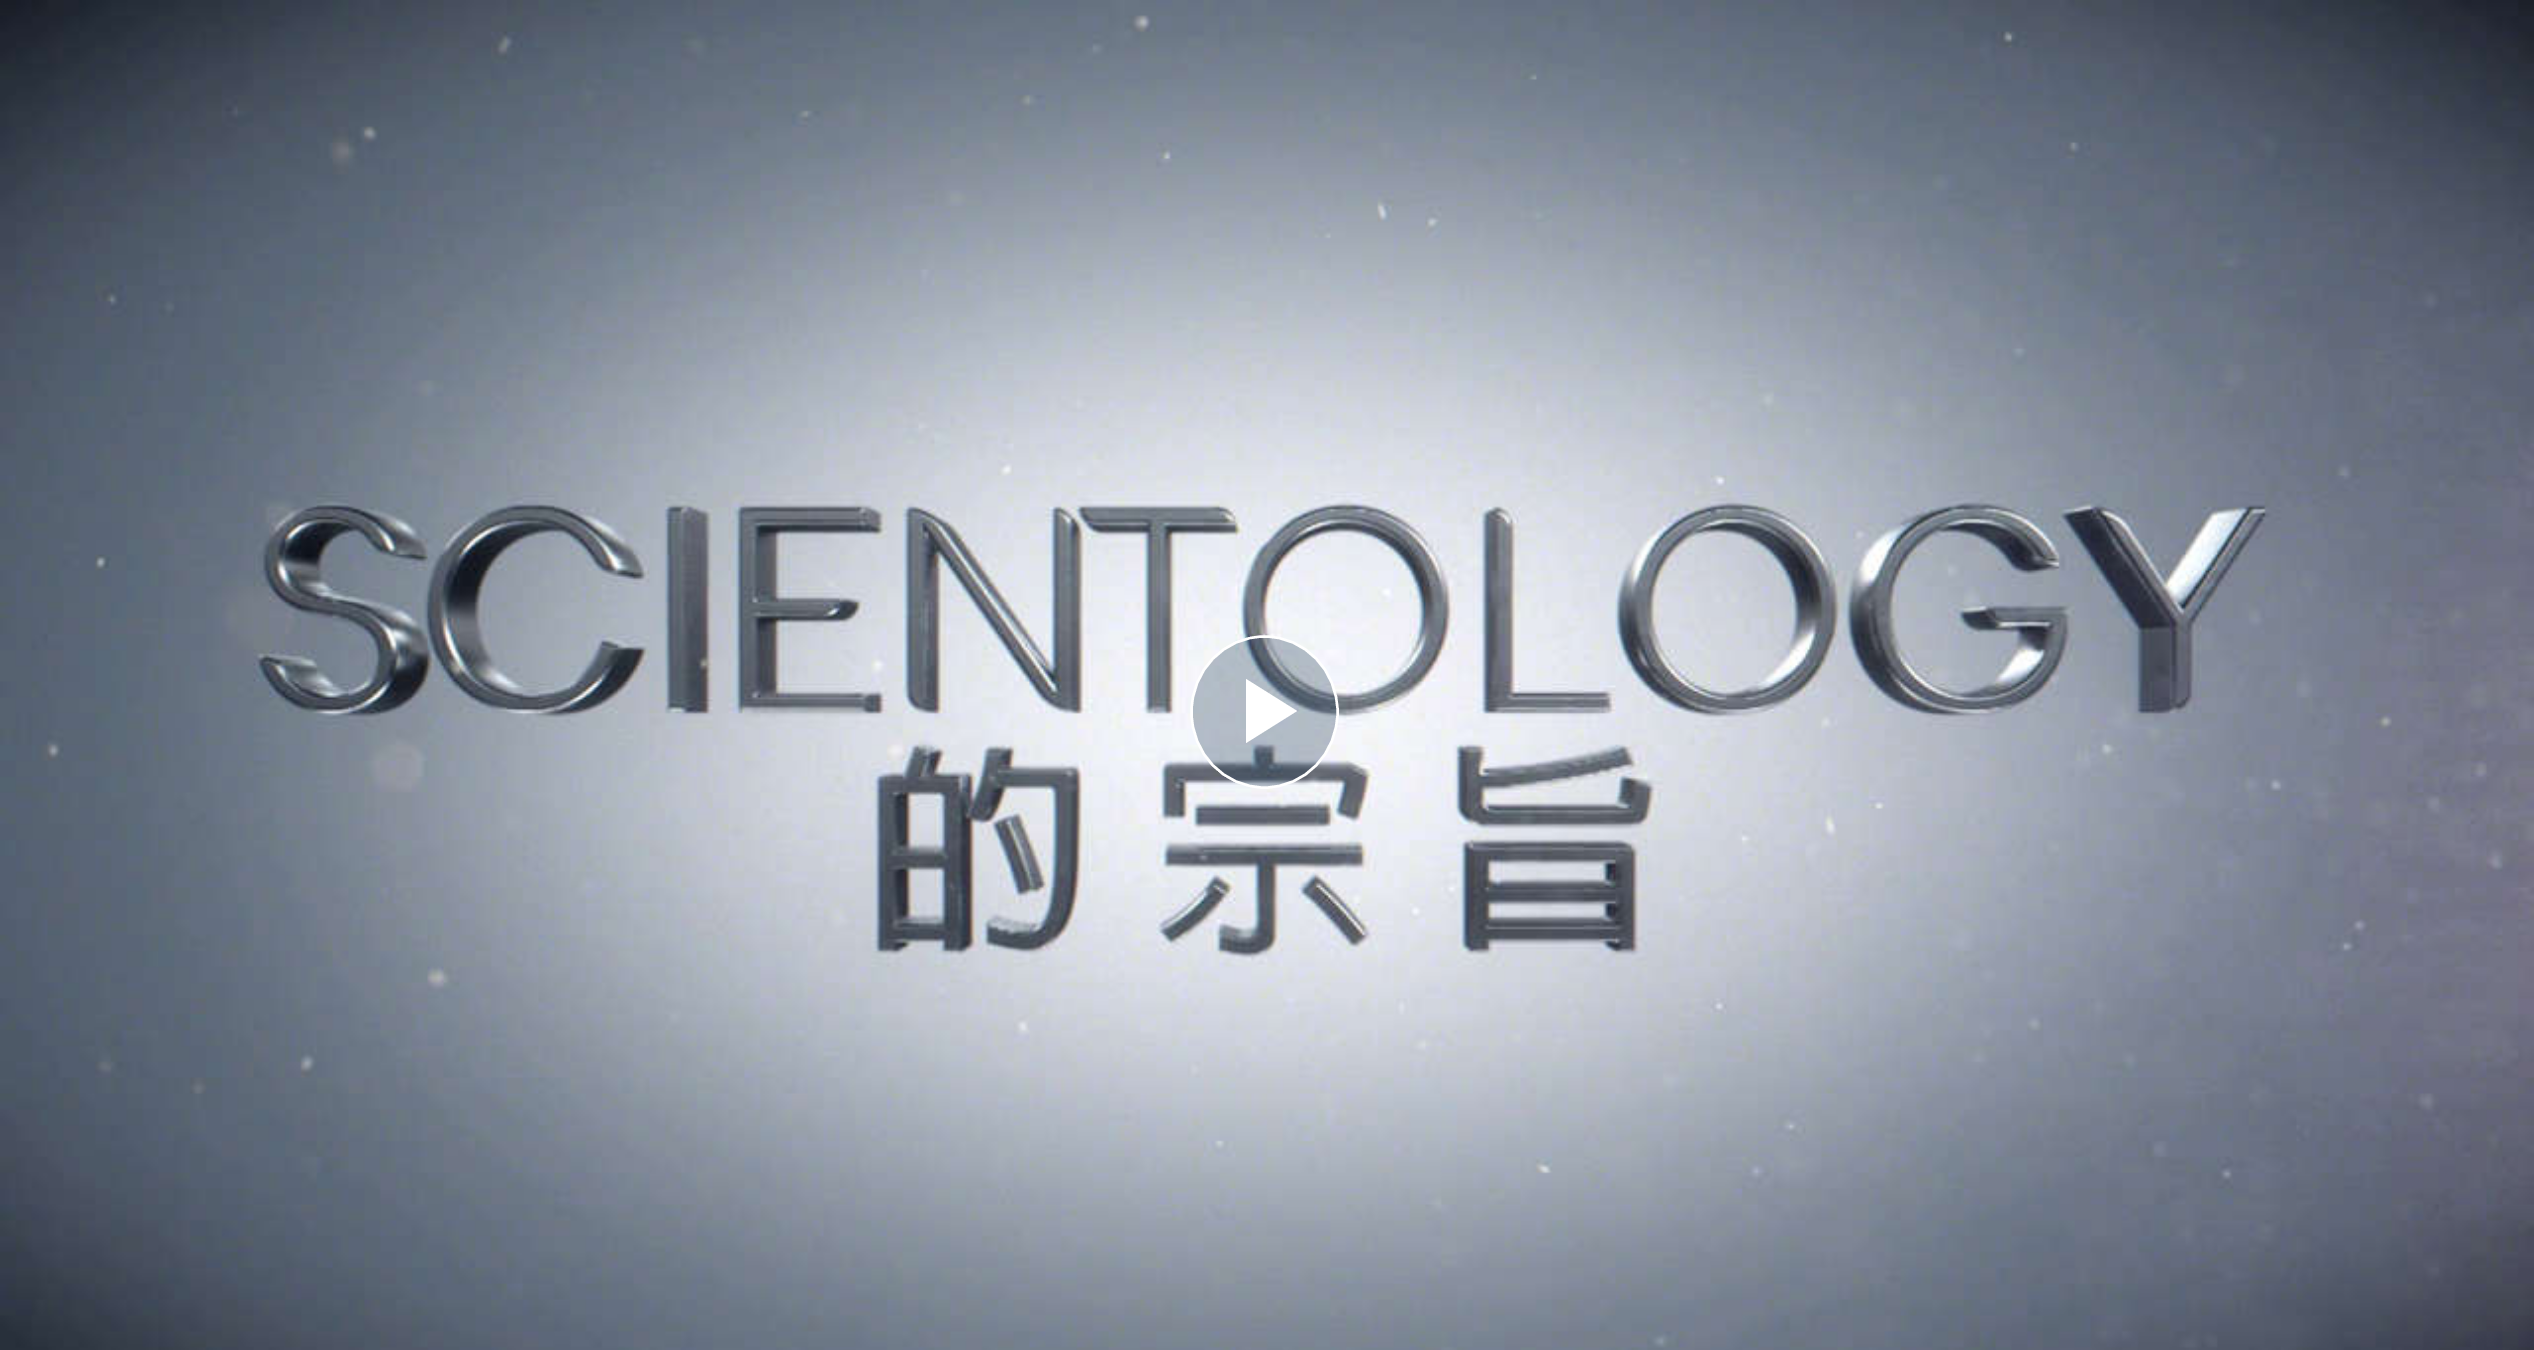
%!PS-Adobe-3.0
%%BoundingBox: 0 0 2534 1350
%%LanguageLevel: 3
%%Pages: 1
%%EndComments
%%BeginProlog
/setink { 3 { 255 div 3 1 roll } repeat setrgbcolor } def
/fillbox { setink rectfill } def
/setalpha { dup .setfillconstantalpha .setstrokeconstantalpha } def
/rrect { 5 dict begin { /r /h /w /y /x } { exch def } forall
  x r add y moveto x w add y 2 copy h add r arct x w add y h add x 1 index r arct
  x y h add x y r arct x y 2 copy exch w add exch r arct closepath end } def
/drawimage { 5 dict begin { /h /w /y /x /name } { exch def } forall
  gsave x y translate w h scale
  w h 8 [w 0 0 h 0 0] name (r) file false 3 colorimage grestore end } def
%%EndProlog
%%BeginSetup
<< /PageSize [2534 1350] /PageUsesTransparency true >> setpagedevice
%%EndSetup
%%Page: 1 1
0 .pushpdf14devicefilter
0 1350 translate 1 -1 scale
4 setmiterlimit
0 0 2534 1350 255 255 255 fillbox
(assets/img1.rgb) 0 0 2534 1350 drawimage
0.3 setalpha
24 50 76 setink
1264.5 636.5 moveto 1305 636.5 1337.5 670.5 1337.5 712 curveto 1337.5 753.5 1305 787.5 1264.5 787.5 curveto 1224 787.5 1191.5 753.5 1191.5 712 curveto 1191.5 670.5 1224 636.5 1264.5 636.5 curveto closepath fill
gsave
1190 635 154 154 77 rrect clip newpath
1 setalpha
255 255 255 setink
2.4 setlinewidth
1264.5 636.5 moveto 1305 636.5 1337.5 670.5 1337.5 712 curveto 1337.5 753.5 1305 787.5 1264.5 787.5 curveto 1224 787.5 1191.5 753.5 1191.5 712 curveto 1191.5 670.5 1224 636.5 1264.5 636.5 curveto closepath stroke
grestore
1 setalpha
255 255 255 setink
1297 711 moveto 1246 679 lineto 1246 743 lineto closepath fill
.poppdf14devicefilter showpage
%%EOF
